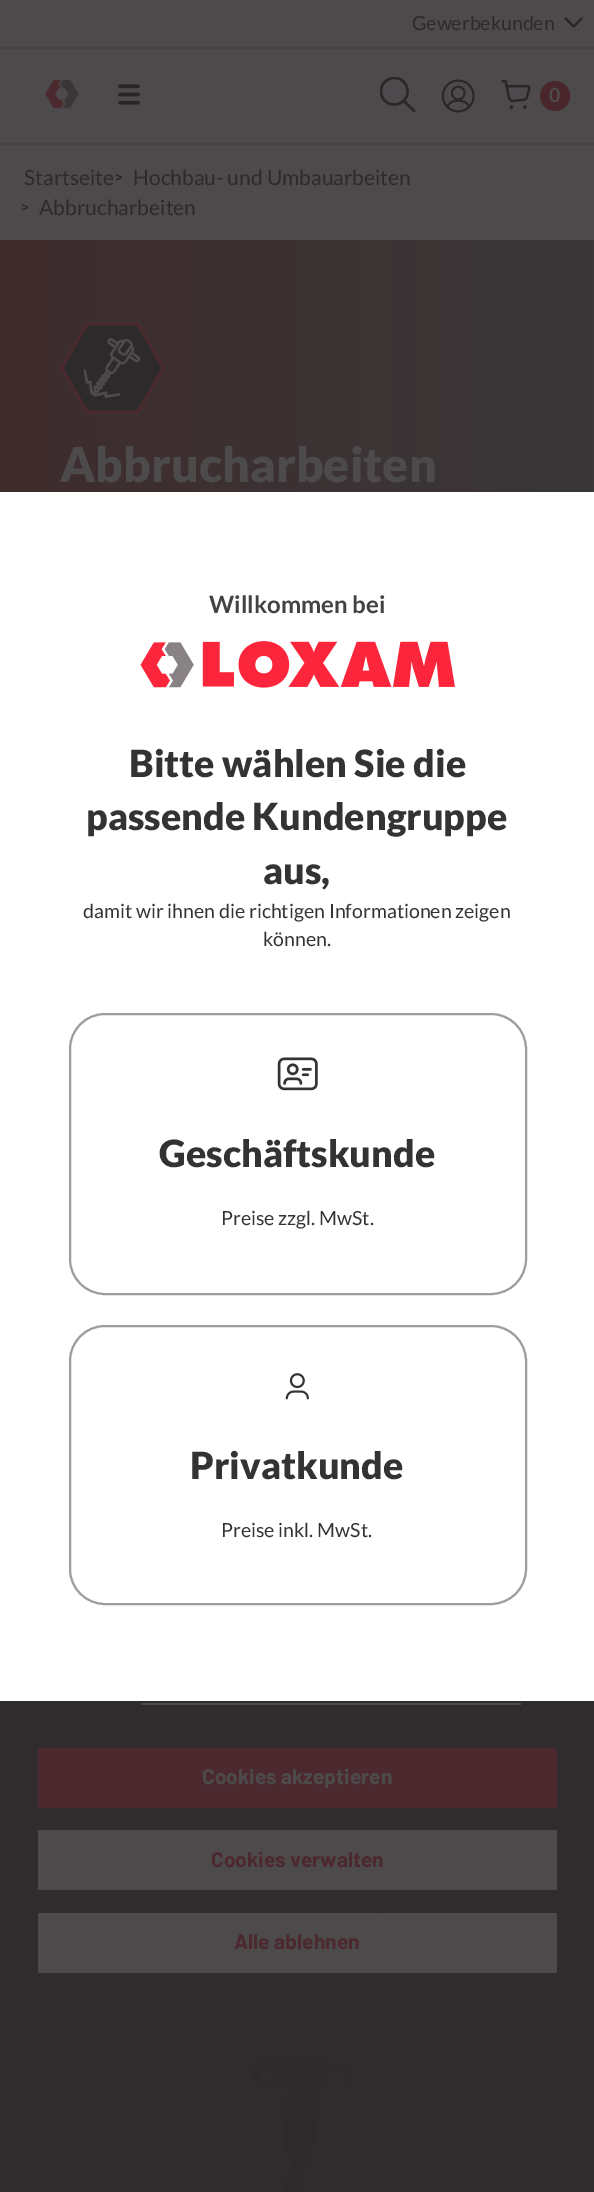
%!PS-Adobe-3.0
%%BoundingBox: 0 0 594 2192
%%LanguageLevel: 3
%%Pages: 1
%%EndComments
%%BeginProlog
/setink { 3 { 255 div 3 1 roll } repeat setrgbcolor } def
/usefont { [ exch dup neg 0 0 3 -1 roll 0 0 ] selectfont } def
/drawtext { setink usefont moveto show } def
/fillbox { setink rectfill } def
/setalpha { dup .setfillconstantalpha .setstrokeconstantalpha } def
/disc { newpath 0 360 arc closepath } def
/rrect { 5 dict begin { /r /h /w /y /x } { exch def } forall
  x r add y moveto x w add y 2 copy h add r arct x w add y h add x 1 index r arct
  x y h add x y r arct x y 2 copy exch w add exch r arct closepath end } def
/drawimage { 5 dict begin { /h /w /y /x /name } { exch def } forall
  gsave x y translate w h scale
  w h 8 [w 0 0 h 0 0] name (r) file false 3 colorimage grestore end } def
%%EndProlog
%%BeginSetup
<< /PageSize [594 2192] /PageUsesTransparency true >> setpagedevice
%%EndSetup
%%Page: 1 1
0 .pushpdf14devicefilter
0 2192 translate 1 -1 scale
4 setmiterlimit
0 0 594 2192 77 74 76 fillbox
0 47 594 2 71 68 70 fillbox
(Gewerbekunden) 412 30 /Lato-Regular 19.5 45 42 44 drawtext
(assets/img1.rgb) 564 17 19 11 drawimage
0 143 594 2 71 68 70 fillbox
(assets/img2.rgb) 45 79 34 38 drawimage
(assets/img3.rgb) 118 84 22 21 drawimage
(assets/img4.rgb) 380 77 36 36 drawimage
(assets/img5.rgb) 441 79 34 34 drawimage
(assets/img6.rgb) 501 79 30 31 drawimage
73 38 43 setink
555 96 15 disc fill
(0) 549 102 /Lato-Bold 19.5 77 74 76 drawtext
(Startseite) 24 185 /Lato-Regular 21 45 42 44 drawtext
(>) 115 182 /Roboto-SemiBold 15 45 42 44 drawtext
(Hochbau- und Umbauarbeiten) 133 185 /Lato-Regular 21 45 42 44 drawtext
(>) 21 212 /Roboto-SemiBold 15 45 42 44 drawtext
(Abbrucharbeiten) 39 215 /Lato-Regular 21 45 42 44 drawtext
gsave 0 240 moveto 594 240 lineto 594 492 lineto 0 492 lineto closepath clip newpath
<< /ShadingType 2 /ColorSpace /DeviceRGB /Coords [0 419 594 419] /Extend [true true] /Function << /FunctionType 2 /Domain [0 1] /C0 [0.247 0.173 0.176] /C1 [0.224 0.216 0.224] /N 1 >> >> shfill grestore
(assets/img7.rgb) 60 323 105 91 drawimage
(Abbrucharbeiten) 60 482 /Lato-Black 48 77 74 76 drawtext
74 72 73 setink
24 1400 546 564 36 rrect fill
77 74 76 setink
48 1709 498 231 24 rrect fill
215 1890 2 26 70 68 69 fillbox
380 1890 2 26 70 68 69 fillbox
74 72 73 setink
24 1988 546 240 36 rrect fill
(assets/img8.rgb) 210 2011 174 181 drawimage
0 492 594 1209 255 255 255 fillbox
(Willkommen bei) 209 613 /Lato-Bold 24 66 66 66 drawtext
(assets/img9.rgb) 140 641 315 47 drawimage
(Bitte wählen Sie die) 129 777 /Lato-Black 37.5 51 51 51 drawtext
(passende Kundengruppe) 86 830 /Lato-Black 37.5 51 51 51 drawtext
(aus,) 263 884 /Lato-Black 37.5 51 51 51 drawtext
(damit wir ihnen die richtigen Informationen zeigen) 83 918 /Lato-Regular 19.5 51 51 51 drawtext
(können.) 263 946 /Lato-Regular 19.5 51 51 51 drawtext
157 157 157 setink
2 setlinewidth
70 1014 456 280 35 rrect stroke
(assets/img10.rgb) 277 1057 41 34 drawimage
(Geschäftskunde) 159 1167 /Lato-Black 37.5 51 51 51 drawtext
(Preise zzgl. MwSt.) 221 1225 /Lato-Regular 19.5 51 51 51 drawtext
157 157 157 setink
70 1326 456 278 35 rrect stroke
(assets/img11.rgb) 285 1373 24 27 drawimage
(Privatkunde) 190 1479 /Lato-Black 37.5 51 51 51 drawtext
(Preise inkl. MwSt.) 221 1537 /Lato-Regular 19.5 51 51 51 drawtext
0.95 setalpha
0 1701 594 491 45 42 44 fillbox
1 setalpha
141 1703 380 2 77 74 76 fillbox
38 1748 519 60 76 41 46 fillbox
(Cookies akzeptieren) 202 1784 /Barlow-Bold 21 77 74 76 drawtext
38 1830 519 60 77 74 76 fillbox
(Cookies verwalten) 211 1867 /Barlow-Bold 21 76 41 46 drawtext
38 1913 519 60 77 74 76 fillbox
(Alle ablehnen) 234 1949 /Barlow-Bold 21 76 41 46 drawtext
.poppdf14devicefilter showpage
%%EOF
